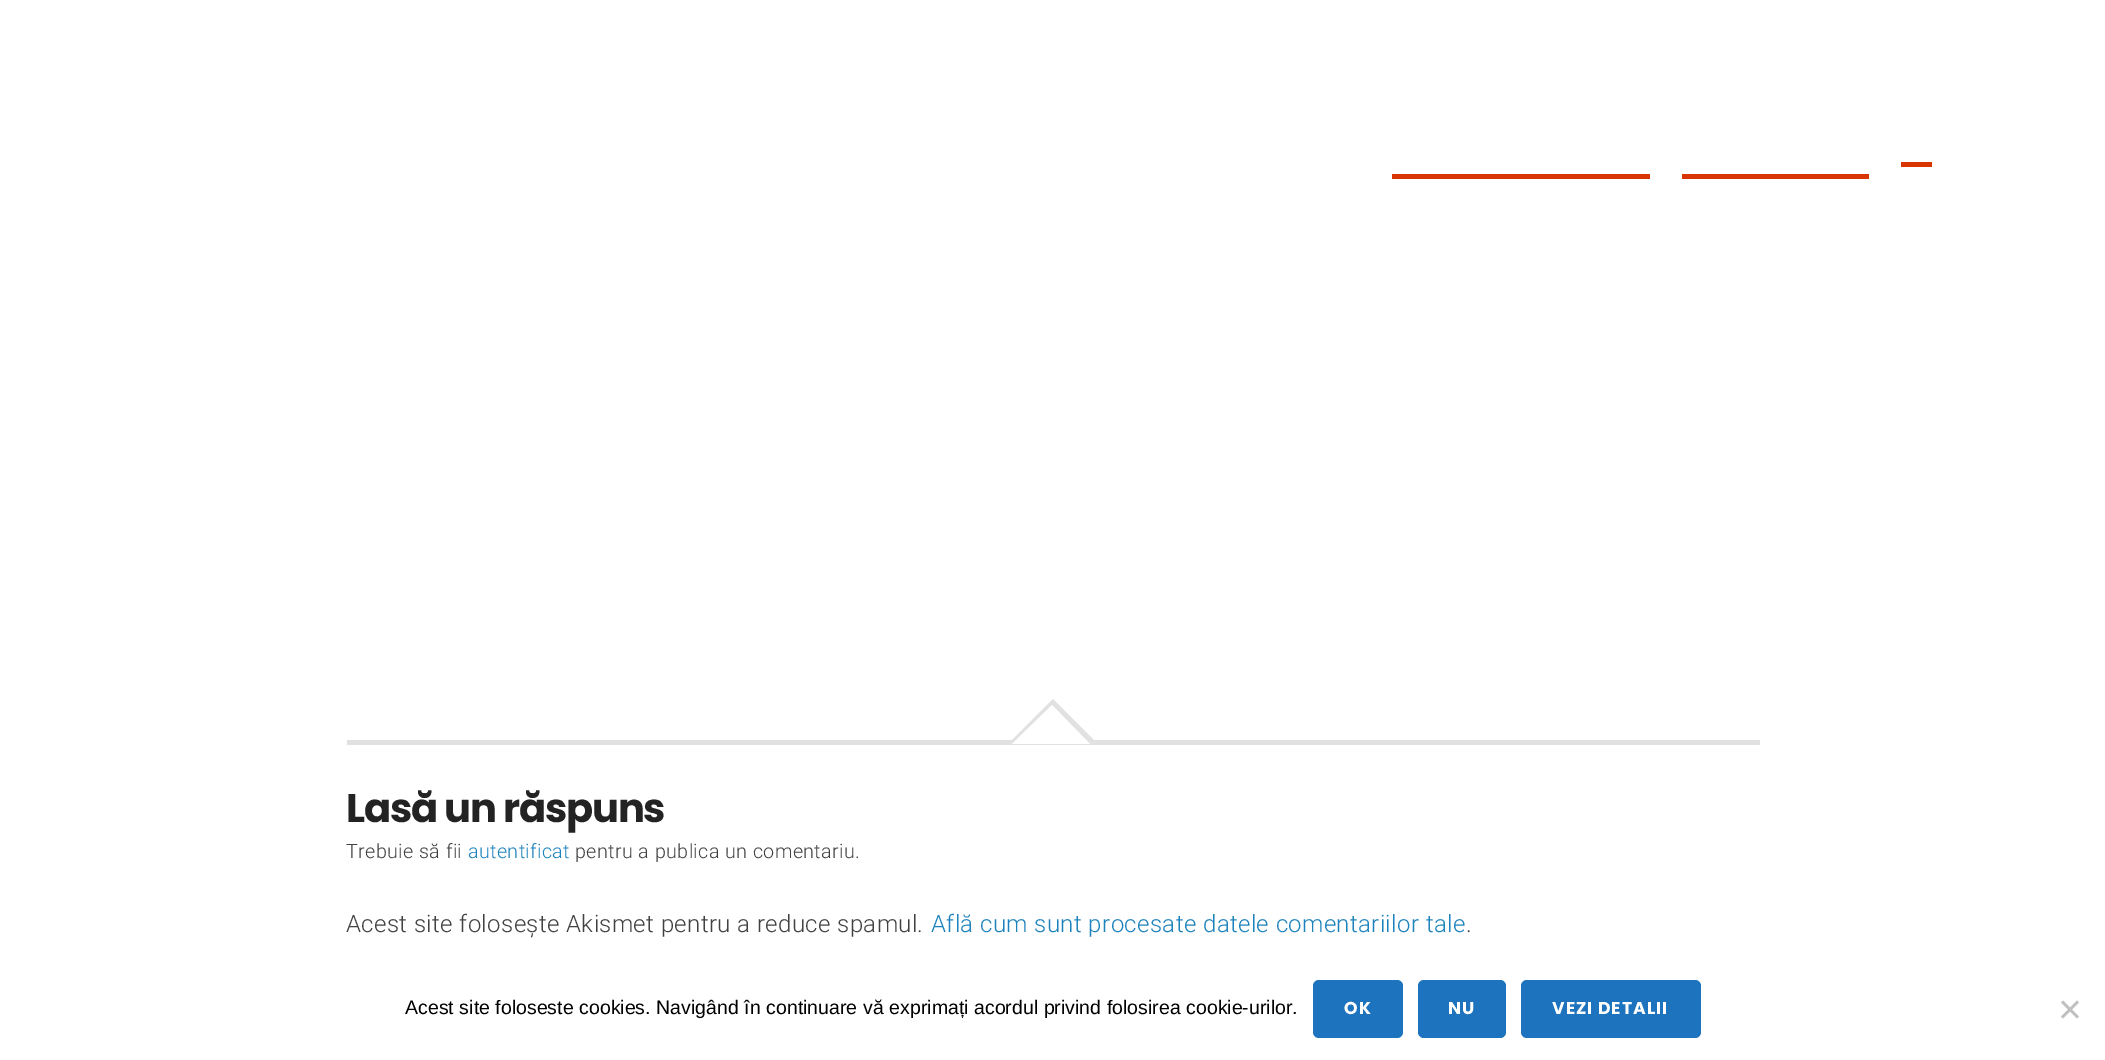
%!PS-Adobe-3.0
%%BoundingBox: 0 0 2105 1060
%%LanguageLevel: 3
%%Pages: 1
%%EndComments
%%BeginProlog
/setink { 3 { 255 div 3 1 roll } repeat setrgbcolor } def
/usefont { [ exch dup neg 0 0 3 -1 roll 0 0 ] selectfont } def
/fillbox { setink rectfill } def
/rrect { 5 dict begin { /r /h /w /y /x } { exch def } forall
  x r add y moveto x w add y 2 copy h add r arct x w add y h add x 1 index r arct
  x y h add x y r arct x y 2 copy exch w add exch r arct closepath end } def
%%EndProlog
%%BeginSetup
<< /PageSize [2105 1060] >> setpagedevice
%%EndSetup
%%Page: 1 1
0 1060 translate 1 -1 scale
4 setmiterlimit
0 0 2105 1060 255 255 255 fillbox
1901 162 31 5 216 53 0 fillbox
1392 174 258 5 216 53 0 fillbox
1682 174 187 5 216 53 0 fillbox
347 740 1413 5 225 225 225 fillbox
1098 744 moveto 1008 744 lineto 1053 699 lineto closepath fill
255 255 255 setink
1090 744 moveto 1012 744 lineto 1052 705 lineto closepath fill
/Poppins-Bold 40 usefont
35 35 35 setink
346 822 moveto 0.25 0 32 -1.25 0 (Lasă un răspuns) awidthshow
/Roboto-Light 19.75 usefont
65 65 65 setink
346 858 moveto 0.25 0 32 0.35 0 (Trebuie să fii) awidthshow
28 130 188 setink
468 858 moveto 0.35 0 (autentificat) ashow
65 65 65 setink
575 858 moveto 0.25 0 32 0.35 0 (pentru a publica un comentariu.) awidthshow
/Roboto-Light 24 usefont
346 932 moveto 0.25 0 32 0.35 0 (Acest site folosește Akismet pentru a reduce spamul.) awidthshow
28 130 188 setink
931 932 moveto 0.25 0 32 0.35 0 (Află cum sunt procesate datele comentariilor tale) awidthshow
65 65 65 setink
1466 932 moveto 0.35 0 (.) ashow
/LiberationSans-Regular 19.5 usefont
0 0 0 setink
405 1014 moveto 0.25 0 32 (Acest site foloseste cookies. Navigând în continuare vă exprimați acordul privind folosirea cookie-urilor.) widthshow
30 115 190 setink
1313 980 90 58 6 rrect fill
/Poppins-Bold 17.25 usefont
255 255 255 setink
1344 1014 moveto 1 0 (OK) ashow
30 115 190 setink
1418 980 88 58 6 rrect fill
255 255 255 setink
1448 1014 moveto 1 0 (NU) ashow
30 115 190 setink
1521 980 180 58 6 rrect fill
255 255 255 setink
1552 1014 moveto 1 0 (VEZI DETALII) ashow
192 192 192 setink
2077 1000.5 moveto 2079 1002.5 lineto 2063 1018.5 lineto 2061 1016.5 lineto closepath fill
2061 1002.5 moveto 2063 1000.5 lineto 2079 1016.5 lineto 2077 1018.5 lineto closepath fill
showpage
%%EOF
